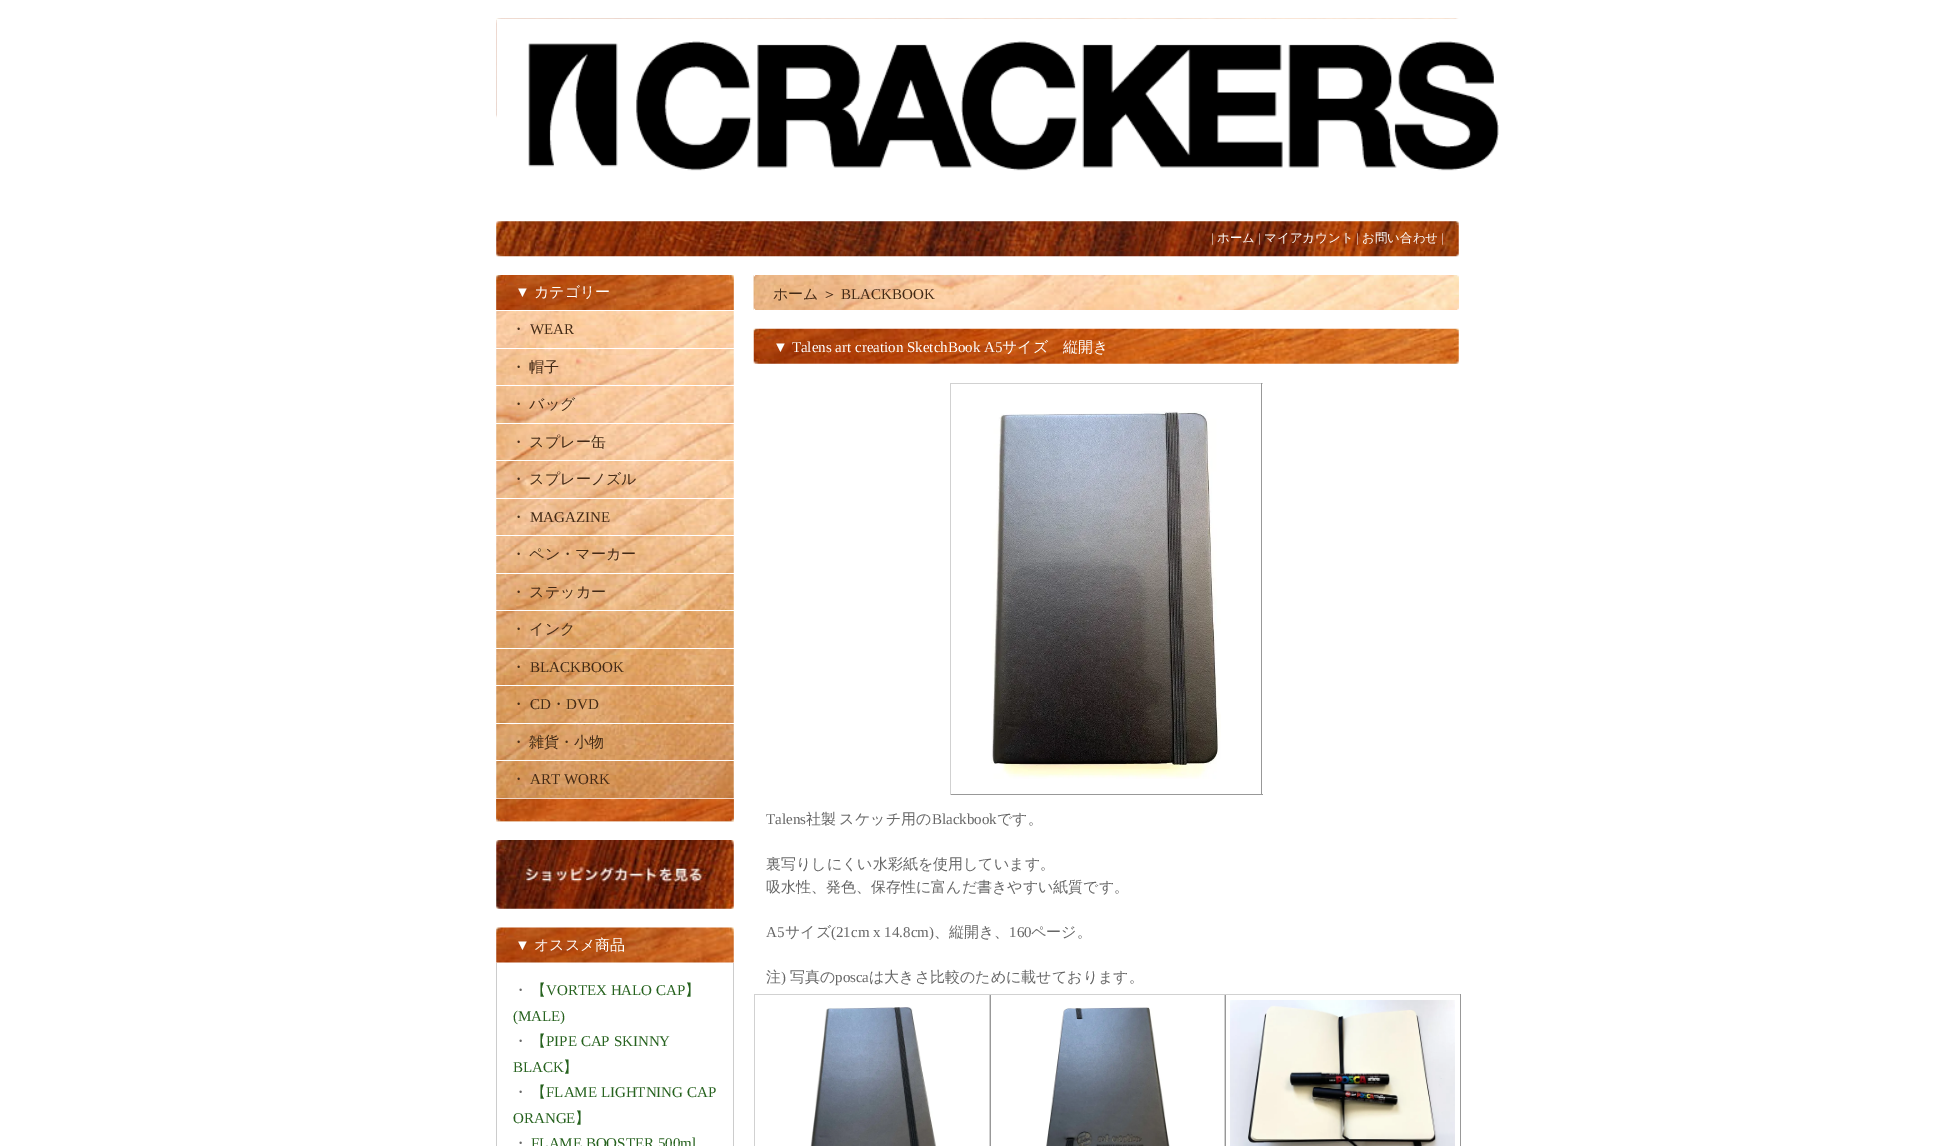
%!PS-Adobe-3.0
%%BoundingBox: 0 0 1954 1146
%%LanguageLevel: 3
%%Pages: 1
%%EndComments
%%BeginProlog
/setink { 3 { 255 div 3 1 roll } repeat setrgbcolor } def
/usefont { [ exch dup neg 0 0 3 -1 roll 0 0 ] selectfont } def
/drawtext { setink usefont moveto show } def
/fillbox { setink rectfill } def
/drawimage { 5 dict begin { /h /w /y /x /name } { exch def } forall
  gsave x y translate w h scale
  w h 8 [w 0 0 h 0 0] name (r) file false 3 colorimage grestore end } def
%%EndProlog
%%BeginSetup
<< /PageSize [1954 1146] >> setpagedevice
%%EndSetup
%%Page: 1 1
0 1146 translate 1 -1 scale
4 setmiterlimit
0 0 1954 1146 255 255 255 fillbox
(assets/img1.rgb) 496 18 963 100 drawimage
(assets/img2.rgb) 496 18 1003 153 drawimage
(assets/img3.rgb) 496 221 963 36 drawimage
(|) 1211 242 /LiberationSerif-Regular 12.5 255 255 255 drawtext
(ホーム) 1217 242 /WenQuanYiZenHei-Medium 12.5 255 255 255 drawtext
(|) 1258 242 /LiberationSerif-Regular 12.5 255 255 255 drawtext
(マイアカウント) 1264 242 /WenQuanYiZenHei-Medium 12.5 255 255 255 drawtext
(|) 1356 242 /LiberationSerif-Regular 12.5 255 255 255 drawtext
(お問い合わせ) 1362 242 /WenQuanYiZenHei-Medium 12.5 255 255 255 drawtext
(|) 1441 242 /LiberationSerif-Regular 12.5 255 255 255 drawtext
(assets/img4.rgb) 496 275 238 547 drawimage
(assets/img5.rgb) 496 275 238 35 drawimage
496 310 238 1 255 255 255 fillbox
(▼) 515 297 /LiberationSerif-Regular 15 255 255 255 drawtext
(カテゴリー) 534 297 /WenQuanYiZenHei-Medium 15 255 255 255 drawtext
496 348 238 1 255 255 255 fillbox
(・) 511 334 /WenQuanYiZenHei-Medium 15 67 42 22 drawtext
(WEAR) 530 334 /LiberationSerif-Regular 15 67 42 22 drawtext
496 385 238 1 255 255 255 fillbox
/WenQuanYiZenHei-Medium 15 usefont
67 42 22 setink
511 372 moveto -1 0 32 (・ 帽子) widthshow
496 423 238 1 255 255 255 fillbox
67 42 22 setink
511 409 moveto -1 0 32 (・ バッグ) widthshow
496 460 238 1 255 255 255 fillbox
67 42 22 setink
511 447 moveto -1 0 32 (・ スプレー缶) widthshow
496 498 238 1 255 255 255 fillbox
67 42 22 setink
511 484 moveto -1 0 32 (・ スプレーノズル) widthshow
496 535 238 1 255 255 255 fillbox
(・) 511 522 /WenQuanYiZenHei-Medium 15 67 42 22 drawtext
(MAGAZINE) 530 522 /LiberationSerif-Regular 15 67 42 22 drawtext
496 573 238 1 255 255 255 fillbox
/WenQuanYiZenHei-Medium 15 usefont
67 42 22 setink
511 559 moveto -1 0 32 (・ ペン・マーカー) widthshow
496 610 238 1 255 255 255 fillbox
67 42 22 setink
511 597 moveto -1 0 32 (・ ステッカー) widthshow
496 648 238 1 255 255 255 fillbox
67 42 22 setink
511 634 moveto -1 0 32 (・ インク) widthshow
496 685 238 1 255 255 255 fillbox
(・) 511 672 /WenQuanYiZenHei-Medium 15 67 42 22 drawtext
(BLACKBOOK) 530 672 /LiberationSerif-Regular 15 67 42 22 drawtext
496 723 238 1 255 255 255 fillbox
(・) 511 709 /WenQuanYiZenHei-Medium 15 67 42 22 drawtext
(CD) 530 709 /LiberationSerif-Regular 15 67 42 22 drawtext
(・) 551 709 /WenQuanYiZenHei-Medium 15 67 42 22 drawtext
(DVD) 566 709 /LiberationSerif-Regular 15 67 42 22 drawtext
496 760 238 1 255 255 255 fillbox
/WenQuanYiZenHei-Medium 15 usefont
67 42 22 setink
511 747 moveto -1 0 32 (・ 雑貨・小物) widthshow
496 798 238 1 255 255 255 fillbox
(・) 511 784 /WenQuanYiZenHei-Medium 15 67 42 22 drawtext
(ART WORK) 530 784 /LiberationSerif-Regular 15 67 42 22 drawtext
(assets/img6.rgb) 496 798 238 24 drawimage
(assets/img7.rgb) 496 840 238 69 drawimage
(assets/img8.rgb) 496 927 238 36 drawimage
(▼) 515 950 /LiberationSerif-Regular 15 255 255 255 drawtext
(オススメ商品) 534 950 /WenQuanYiZenHei-Medium 15 255 255 255 drawtext
733 963 1 183 204 204 204 fillbox
496 963 1 183 204 204 204 fillbox
(・) 513 995 /WenQuanYiZenHei-Medium 15 102 102 102 drawtext
(【) 531 995 /WenQuanYiZenHei-Medium 15 38 98 30 drawtext
(VORTEX HALO CAP) 546 995 /LiberationSerif-Regular 15 38 98 30 drawtext
(】) 685 995 /WenQuanYiZenHei-Medium 15 38 98 30 drawtext
(\(MALE\)) 513 1021 /LiberationSerif-Regular 15 38 98 30 drawtext
(・) 513 1046 /WenQuanYiZenHei-Medium 15 102 102 102 drawtext
(【) 531 1046 /WenQuanYiZenHei-Medium 15 38 98 30 drawtext
(PIPE CAP SKINNY) 546 1046 /LiberationSerif-Regular 15 38 98 30 drawtext
(BLACK) 513 1072 /LiberationSerif-Regular 15 38 98 30 drawtext
(】) 563 1072 /WenQuanYiZenHei-Medium 15 38 98 30 drawtext
(・) 513 1097 /WenQuanYiZenHei-Medium 15 102 102 102 drawtext
(【) 531 1097 /WenQuanYiZenHei-Medium 15 38 98 30 drawtext
(FLAME LIGHTNING CAP) 546 1097 /LiberationSerif-Regular 15 38 98 30 drawtext
(ORANGE) 513 1123 /LiberationSerif-Regular 15 38 98 30 drawtext
(】) 575 1123 /WenQuanYiZenHei-Medium 15 38 98 30 drawtext
(・) 513 1148 /WenQuanYiZenHei-Medium 15 102 102 102 drawtext
(FLAME BOOSTER 500ml) 531 1148 /LiberationSerif-Regular 15 38 98 30 drawtext
(assets/img9.rgb) 753 275 706 35 drawimage
(assets/img10.rgb) 753 275 706 35 drawimage
(assets/img11.rgb) 753 275 706 2 drawimage
(ホーム) 773 299 /WenQuanYiZenHei-Medium 15 67 42 22 drawtext
(＞) 822 299 /WenQuanYiZenHei-Medium 15 67 42 22 drawtext
(BLACKBOOK) 841 299 /LiberationSerif-Regular 15 67 42 22 drawtext
(assets/img12.rgb) 753 308 706 2 drawimage
(assets/img13.rgb) 753 328 706 36 drawimage
(▼ Talens art creation SketchBook A5) 773 352 /LiberationSerif-Regular 15 255 255 255 drawtext
(サイズ　縦開き) 1002 352 /WenQuanYiZenHei-Medium 15 255 255 255 drawtext
950 383 313 1 209 209 209 fillbox
1261 383 1 412 152 152 152 fillbox
950 794 313 1 152 152 152 fillbox
950 383 1 412 209 209 209 fillbox
(assets/img14.rgb) 991 411 230 368 drawimage
(Talens) 766 824 /LiberationSerif-Regular 15 102 102 102 drawtext
/WenQuanYiZenHei-Medium 15 usefont
806 824 moveto -1 0 32 (社製 スケッチ用の) widthshow
(Blackbook) 932 824 /LiberationSerif-Regular 15 102 102 102 drawtext
(です。) 997 824 /WenQuanYiZenHei-Medium 15 102 102 102 drawtext
(裏写りしにくい水彩紙を使用しています。) 766 869 /WenQuanYiZenHei-Medium 15 102 102 102 drawtext
(吸水性、発色、保存性に富んだ書きやすい紙質です。) 766 892 /WenQuanYiZenHei-Medium 15 102 102 102 drawtext
(A5) 766 937 /LiberationSerif-Regular 15 102 102 102 drawtext
(サイズ) 785 937 /WenQuanYiZenHei-Medium 15 102 102 102 drawtext
(\(21cm x 14.8cm\)) 831 937 /LiberationSerif-Regular 15 102 102 102 drawtext
(、縦開き、) 934 937 /WenQuanYiZenHei-Medium 15 102 102 102 drawtext
(160) 1009 937 /LiberationSerif-Regular 15 102 102 102 drawtext
(ページ。) 1031 937 /WenQuanYiZenHei-Medium 15 102 102 102 drawtext
(注) 766 982 /WenQuanYiZenHei-Medium 15 102 102 102 drawtext
(\)) 781 982 /LiberationSerif-Regular 15 102 102 102 drawtext
(写真の) 790 982 /WenQuanYiZenHei-Medium 15 102 102 102 drawtext
(posca) 835 982 /LiberationSerif-Regular 15 102 102 102 drawtext
(は大きさ比較のために載せております。) 869 982 /WenQuanYiZenHei-Medium 15 102 102 102 drawtext
754 994 237 1 209 209 209 fillbox
754 994 1 152 209 209 209 fillbox
(assets/img15.rgb) 810 1007 127 139 drawimage
990 994 1 152 152 152 152 fillbox
989 994 237 1 209 209 209 fillbox
989 994 1 152 209 209 209 fillbox
(assets/img16.rgb) 1046 1007 124 139 drawimage
1225 994 1 152 152 152 152 fillbox
1224 994 237 1 209 209 209 fillbox
1224 994 1 152 209 209 209 fillbox
(assets/img17.rgb) 1230 1000 225 146 drawimage
1460 994 1 152 152 152 152 fillbox
showpage
%%EOF
